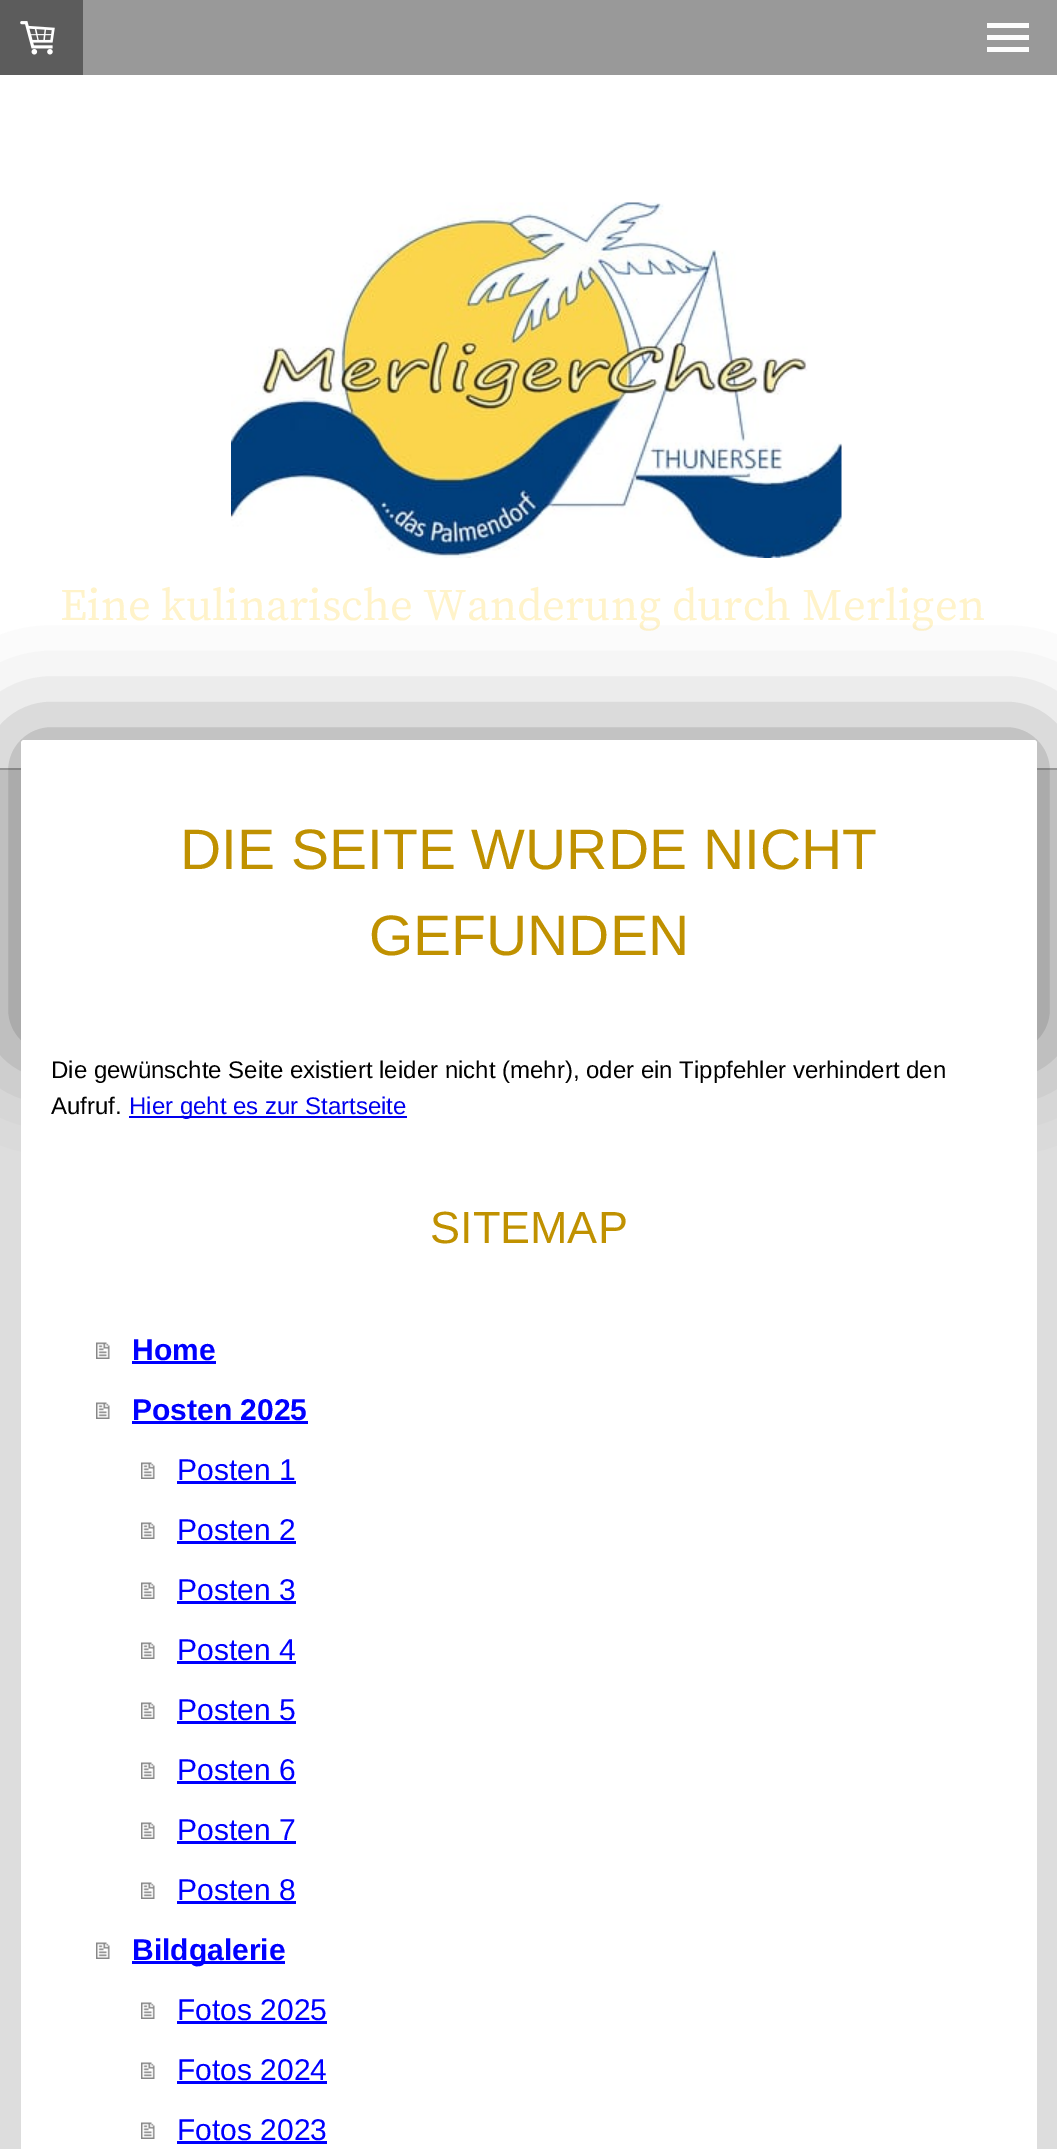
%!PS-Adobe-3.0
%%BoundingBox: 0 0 1057 2149
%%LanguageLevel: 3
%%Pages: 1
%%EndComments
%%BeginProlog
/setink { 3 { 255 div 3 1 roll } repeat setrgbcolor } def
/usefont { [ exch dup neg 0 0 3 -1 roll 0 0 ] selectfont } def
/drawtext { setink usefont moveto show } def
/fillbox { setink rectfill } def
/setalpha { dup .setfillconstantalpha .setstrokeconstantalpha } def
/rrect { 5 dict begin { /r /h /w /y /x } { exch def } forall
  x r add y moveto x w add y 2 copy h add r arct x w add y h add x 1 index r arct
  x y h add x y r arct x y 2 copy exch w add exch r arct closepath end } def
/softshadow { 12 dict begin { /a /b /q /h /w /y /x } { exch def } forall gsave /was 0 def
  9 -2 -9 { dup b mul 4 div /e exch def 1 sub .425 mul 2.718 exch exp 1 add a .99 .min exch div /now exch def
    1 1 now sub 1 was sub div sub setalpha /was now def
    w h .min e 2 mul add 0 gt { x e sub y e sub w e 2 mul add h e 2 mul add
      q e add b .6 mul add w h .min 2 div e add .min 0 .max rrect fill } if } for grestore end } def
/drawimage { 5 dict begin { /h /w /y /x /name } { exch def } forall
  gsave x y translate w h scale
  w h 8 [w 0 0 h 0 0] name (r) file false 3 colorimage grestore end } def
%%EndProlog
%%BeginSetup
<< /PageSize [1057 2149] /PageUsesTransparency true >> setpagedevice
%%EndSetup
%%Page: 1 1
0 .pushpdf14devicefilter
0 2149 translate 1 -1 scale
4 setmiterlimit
0 0 1057 2149 255 255 255 fillbox
83 0 974 75 153 153 153 fillbox
0 0 83 75 92 92 92 fillbox
(assets/img1.rgb) 20 21 35 34 drawimage
987 35 42 5 253 253 253 fillbox
987 23 42 5 253 253 253 fillbox
987 47 42 5 253 253 253 fillbox
(assets/img2.rgb) 231 202 611 356 drawimage
(Eine kulinarische Wanderung durch Merligen) 60 620 /SourceSerifPro-Regular 45 255 243 202 drawtext
0 770 1057 1379 221 221 221 fillbox
0 768 1057 2 170 170 170 fillbox
51 51 51 setink
21 740 1016 300 0 51 0.6 softshadow
255 255 255 setink
21 740 1016 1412 3 rrect fill
(DIE SEITE WURDE NICHT) 180 869 /LiberationSans-Regular 57 192 145 0 drawtext
(GEFUNDEN) 369 955 /LiberationSans-Regular 57 192 145 0 drawtext
(Die gewünschte Seite existiert leider nicht \(mehr\), oder ein Tippfehler verhindert den) 51 1078 /LiberationSans-Regular 24 0 0 0 drawtext
(Aufruf.) 51 1114 /LiberationSans-Regular 24 0 0 0 drawtext
129 1116 278 2 0 0 238 fillbox
(Hier geht es zur Startseite) 129 1114 /LiberationSans-Regular 24 0 0 238 drawtext
(SITEMAP) 430 1243 /LiberationSans-Regular 45 192 145 0 drawtext
(assets/img3.rgb) 96 1342 14 17 drawimage
(Home) 132 1360 /LiberationSans-Bold 30 0 0 255 drawtext
132 1361 84 3 0 0 255 fillbox
(assets/img3.rgb) 96 1402 14 17 drawimage
(Posten 2025) 132 1420 /LiberationSans-Bold 30 0 0 255 drawtext
132 1421 176 3 0 0 255 fillbox
(assets/img3.rgb) 141 1462 14 17 drawimage
(Posten 1) 177 1480 /LiberationSans-Regular 30 0 0 255 drawtext
177 1481 119 3 0 0 255 fillbox
(assets/img3.rgb) 141 1522 14 17 drawimage
(Posten 2) 177 1540 /LiberationSans-Regular 30 0 0 255 drawtext
177 1541 119 3 0 0 255 fillbox
(assets/img3.rgb) 141 1582 14 17 drawimage
(Posten 3) 177 1600 /LiberationSans-Regular 30 0 0 255 drawtext
177 1601 119 3 0 0 255 fillbox
(assets/img3.rgb) 141 1642 14 17 drawimage
(Posten 4) 177 1660 /LiberationSans-Regular 30 0 0 255 drawtext
177 1661 119 3 0 0 255 fillbox
(assets/img3.rgb) 141 1702 14 17 drawimage
(Posten 5) 177 1720 /LiberationSans-Regular 30 0 0 255 drawtext
177 1721 119 3 0 0 255 fillbox
(assets/img3.rgb) 141 1762 14 17 drawimage
(Posten 6) 177 1780 /LiberationSans-Regular 30 0 0 255 drawtext
177 1781 119 3 0 0 255 fillbox
(assets/img3.rgb) 141 1822 14 17 drawimage
(Posten 7) 177 1840 /LiberationSans-Regular 30 0 0 255 drawtext
177 1841 119 3 0 0 255 fillbox
(assets/img3.rgb) 141 1882 14 17 drawimage
(Posten 8) 177 1900 /LiberationSans-Regular 30 0 0 255 drawtext
177 1901 119 3 0 0 255 fillbox
(assets/img3.rgb) 96 1942 14 17 drawimage
132 1961 153 3 0 0 255 fillbox
(Bildgalerie) 132 1960 /LiberationSans-Bold 30 0 0 255 drawtext
(assets/img3.rgb) 141 2002 14 17 drawimage
(Fotos 2025) 177 2020 /LiberationSans-Regular 30 0 0 255 drawtext
177 2021 150 3 0 0 255 fillbox
(assets/img3.rgb) 141 2062 14 17 drawimage
(Fotos 2024) 177 2080 /LiberationSans-Regular 30 0 0 255 drawtext
177 2081 150 3 0 0 255 fillbox
(assets/img3.rgb) 141 2122 14 17 drawimage
(Fotos 2023) 177 2140 /LiberationSans-Regular 30 0 0 255 drawtext
177 2141 150 3 0 0 255 fillbox
.poppdf14devicefilter showpage
%%EOF
